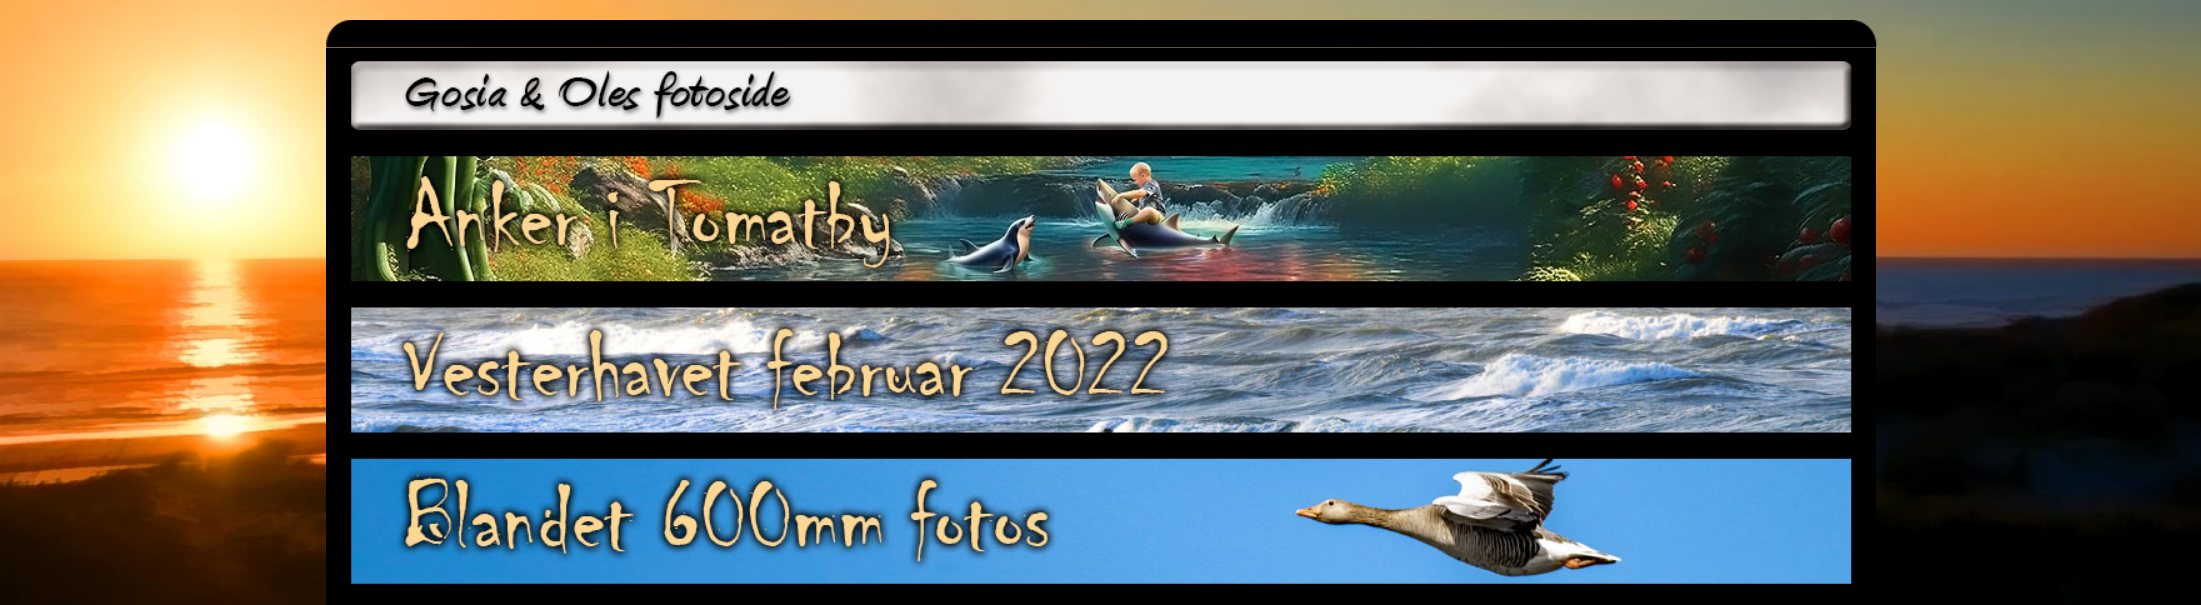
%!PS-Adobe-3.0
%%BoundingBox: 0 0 2201 605
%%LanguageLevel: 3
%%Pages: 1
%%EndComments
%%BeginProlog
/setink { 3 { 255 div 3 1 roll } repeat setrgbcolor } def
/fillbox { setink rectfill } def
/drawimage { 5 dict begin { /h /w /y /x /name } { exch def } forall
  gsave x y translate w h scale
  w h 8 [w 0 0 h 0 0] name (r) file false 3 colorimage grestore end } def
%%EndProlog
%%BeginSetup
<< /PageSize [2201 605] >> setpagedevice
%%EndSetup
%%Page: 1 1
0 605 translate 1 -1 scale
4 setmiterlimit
0 0 2201 605 255 255 255 fillbox
(assets/img1.rgb) 0 0 2201 605 drawimage
(assets/img2.rgb) 326 20 1551 28 drawimage
326 48 1550 557 0 0 0 fillbox
(assets/img3.rgb) 351 61 1501 69 drawimage
(assets/img4.rgb) 351 156 1501 126 drawimage
(assets/img5.rgb) 351 307 1501 126 drawimage
(assets/img6.rgb) 351 458 1501 126 drawimage
showpage
%%EOF
